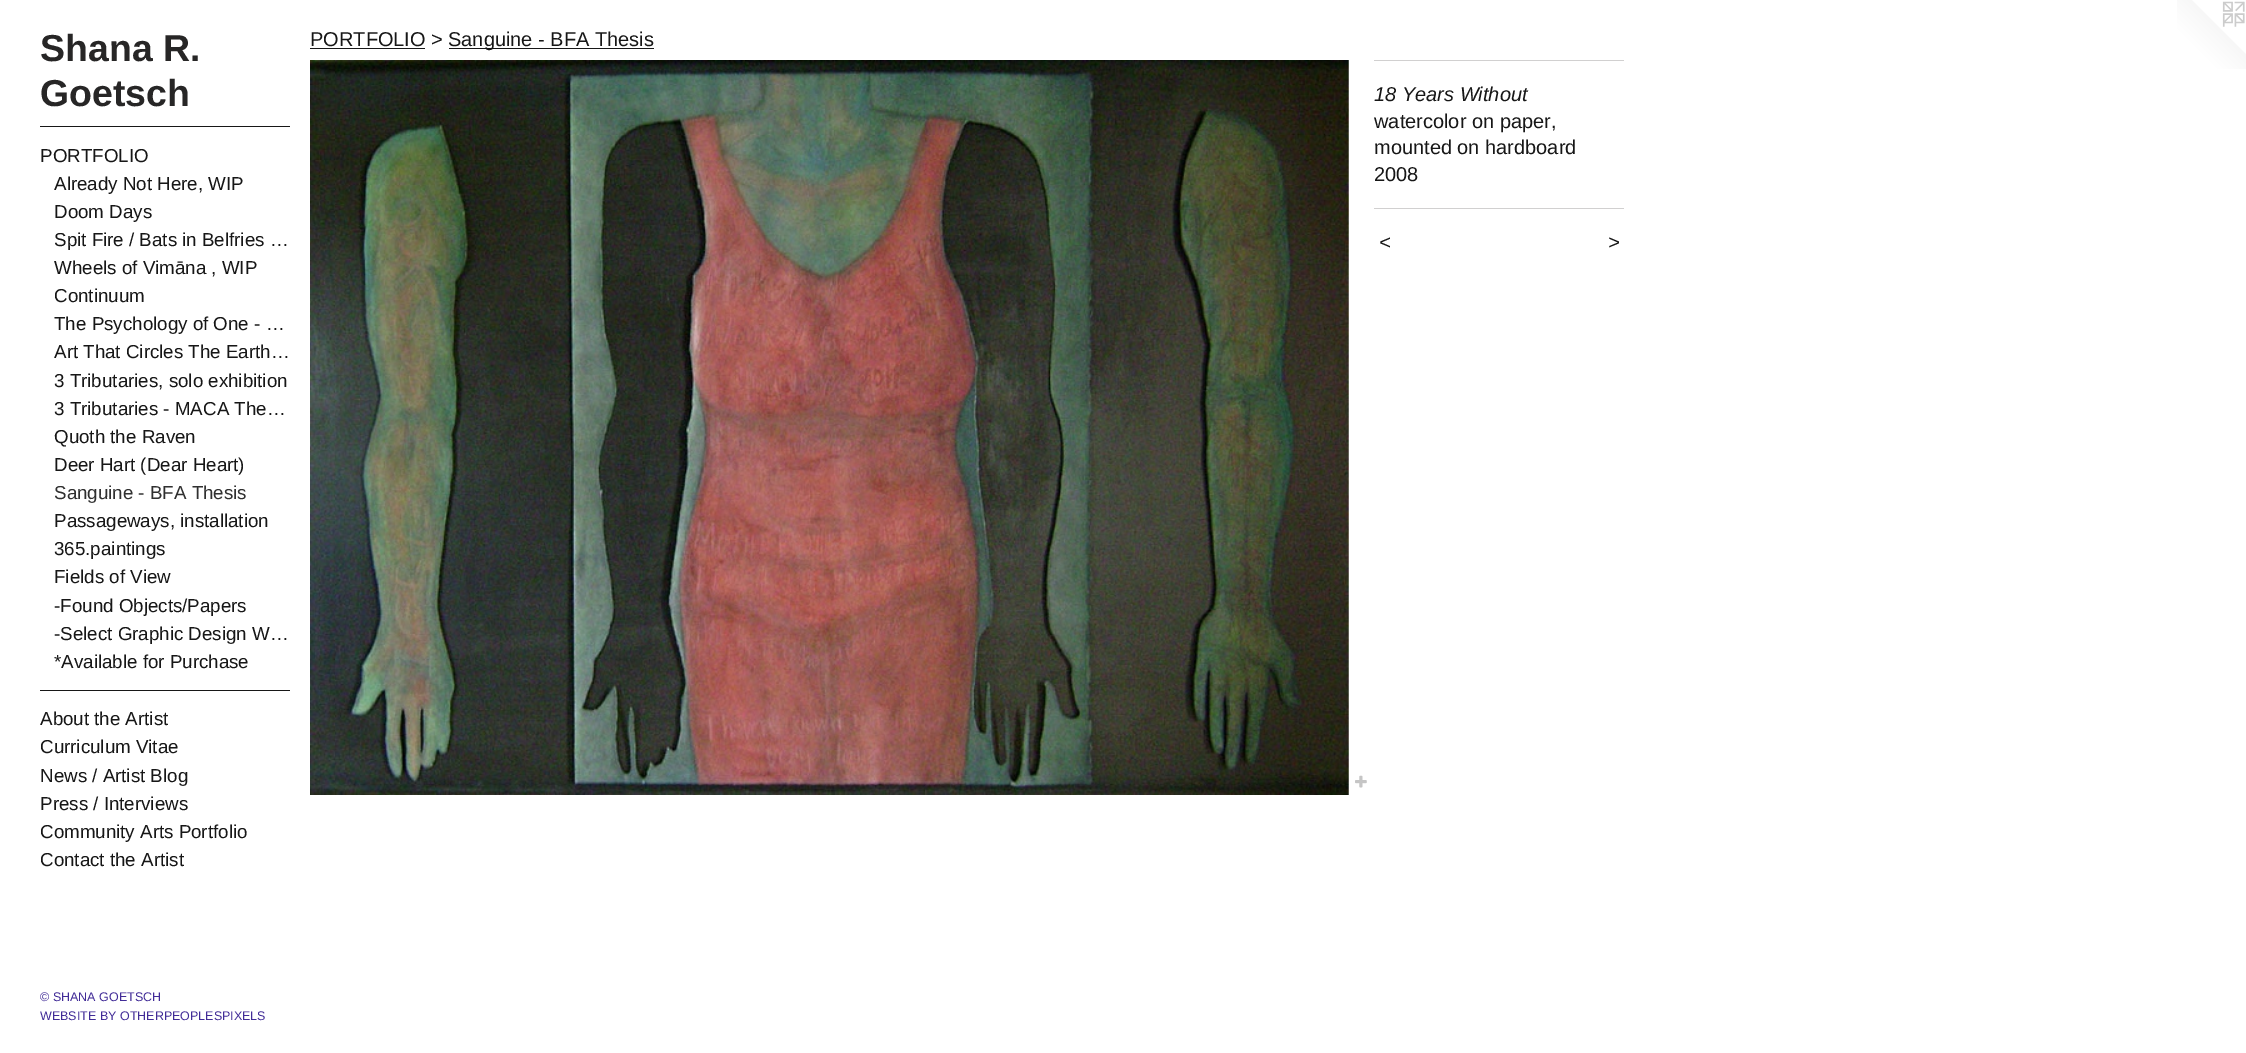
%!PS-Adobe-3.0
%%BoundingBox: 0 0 2246 1053
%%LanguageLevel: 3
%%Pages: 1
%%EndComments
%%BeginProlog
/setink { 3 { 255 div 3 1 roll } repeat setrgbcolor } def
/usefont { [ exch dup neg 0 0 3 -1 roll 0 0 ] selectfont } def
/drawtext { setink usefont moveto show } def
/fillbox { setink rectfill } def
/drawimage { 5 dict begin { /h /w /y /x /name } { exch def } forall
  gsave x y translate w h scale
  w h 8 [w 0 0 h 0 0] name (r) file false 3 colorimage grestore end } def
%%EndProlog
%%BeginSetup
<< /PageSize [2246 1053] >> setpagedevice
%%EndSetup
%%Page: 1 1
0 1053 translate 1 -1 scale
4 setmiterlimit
0 0 2246 1053 255 255 255 fillbox
(Shana R.) 40 61 /LiberationSans-Bold 37.5 39 38 38 drawtext
(Goetsch) 40 106 /LiberationSans-Bold 37.5 39 38 38 drawtext
40 126 250 1 23 23 23 fillbox
(PORTFOLIO) 40 162 /LiberationSans-Regular 18.75 23 23 23 drawtext
(Already Not Here, WIP) 54 190 /LiberationSans-Regular 18.75 23 23 23 drawtext
(Doom Days) 54 218 /LiberationSans-Regular 18.75 23 23 23 drawtext
(Spit Fire / Bats in Belfries …) 54 246 /LiberationSans-Regular 18.75 23 23 23 drawtext
(Wheels of Vimāna , WIP) 54 274 /LiberationSans-Regular 18.75 23 23 23 drawtext
(Continuum) 54 302 /LiberationSans-Regular 18.75 23 23 23 drawtext
(The Psychology of One - …) 54 330 /LiberationSans-Regular 18.75 23 23 23 drawtext
(Art That Circles The Earth…) 54 358 /LiberationSans-Regular 18.75 23 23 23 drawtext
(3 Tributaries, solo exhibition) 54 387 /LiberationSans-Regular 18.75 23 23 23 drawtext
(3 Tributaries - MACA The…) 54 415 /LiberationSans-Regular 18.75 23 23 23 drawtext
(Quoth the Raven) 54 443 /LiberationSans-Regular 18.75 23 23 23 drawtext
(Deer Hart \(Dear Heart\)) 54 471 /LiberationSans-Regular 18.75 23 23 23 drawtext
(Sanguine - BFA Thesis) 54 499 /LiberationSans-Regular 18.75 48 48 48 drawtext
(Passageways, installation) 54 527 /LiberationSans-Regular 18.75 23 23 23 drawtext
(365.paintings) 54 555 /LiberationSans-Regular 18.75 23 23 23 drawtext
(Fields of View) 54 583 /LiberationSans-Regular 18.75 23 23 23 drawtext
(-Found Objects/Papers) 54 612 /LiberationSans-Regular 18.75 23 23 23 drawtext
(-Select Graphic Design W…) 54 640 /LiberationSans-Regular 18.75 23 23 23 drawtext
(*Available for Purchase) 54 668 /LiberationSans-Regular 18.75 23 23 23 drawtext
40 690 250 1 23 23 23 fillbox
(About the Artist) 40 725 /LiberationSans-Regular 18.75 23 23 23 drawtext
(Curriculum Vitae) 40 753 /LiberationSans-Regular 18.75 23 23 23 drawtext
(News / Artist Blog) 40 782 /LiberationSans-Regular 18.75 23 23 23 drawtext
(Press / Interviews) 40 810 /LiberationSans-Regular 18.75 23 23 23 drawtext
(Community Arts Portfolio) 40 838 /LiberationSans-Regular 18.75 23 23 23 drawtext
(Contact the Artist) 40 866 /LiberationSans-Regular 18.75 23 23 23 drawtext
(© SHANA GOETSCH) 40 1001 /LiberationSans-Regular 12.5 65 43 151 drawtext
(WEBSITE BY OTHERPEOPLESPIXELS) 40 1020 /LiberationSans-Regular 12.5 65 43 151 drawtext
(PORTFOLIO >) 310 46 /LiberationSans-Regular 20 23 23 23 drawtext
310 48 115 1 23 23 23 fillbox
449 48 205 1 23 23 23 fillbox
(Sanguine - BFA Thesis) 448 46 /LiberationSans-Regular 20 23 23 23 drawtext
(assets/img1.rgb) 310 60 1039 735 drawimage
(assets/img2.rgb) 1355 775 12 13 drawimage
1374 60 250 1 209 208 208 fillbox
(18 Years Without) 1374 101 /LiberationSans-Italic 20 23 23 23 drawtext
(watercolor on paper,) 1374 128 /LiberationSans-Regular 20 23 23 23 drawtext
(mounted on hardboard) 1374 154 /LiberationSans-Regular 20 23 23 23 drawtext
(2008) 1374 181 /LiberationSans-Regular 20 23 23 23 drawtext
1374 208 250 1 209 208 208 fillbox
/LiberationSans-Italic 20 usefont
23 23 23 setink
1379 249 moveto 1 0 (<) ashow
1608 249 moveto 1 0 (>) ashow
(assets/img3.rgb) 2177 0 69 69 drawimage
showpage
%%EOF
